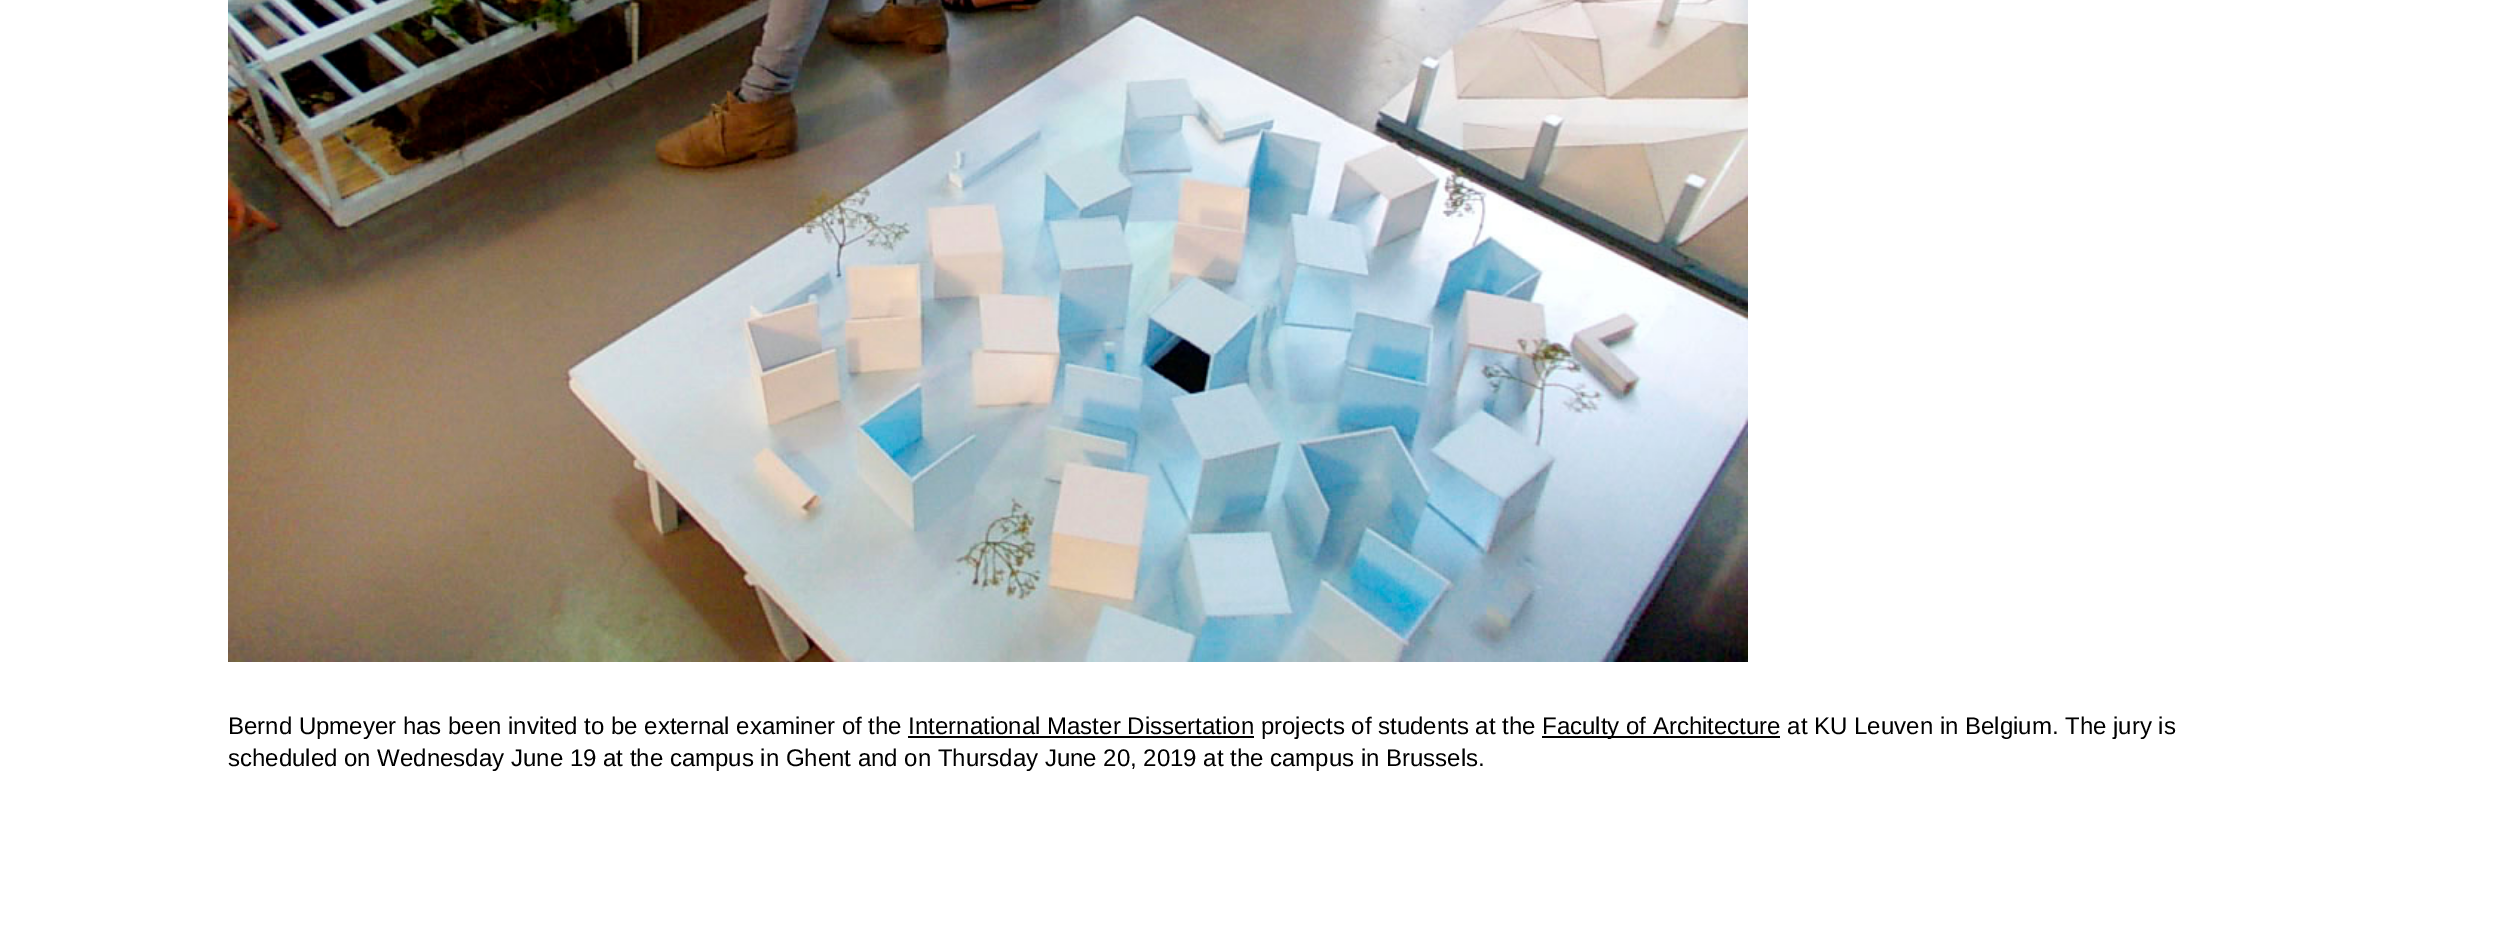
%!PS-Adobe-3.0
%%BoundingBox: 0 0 2503 946
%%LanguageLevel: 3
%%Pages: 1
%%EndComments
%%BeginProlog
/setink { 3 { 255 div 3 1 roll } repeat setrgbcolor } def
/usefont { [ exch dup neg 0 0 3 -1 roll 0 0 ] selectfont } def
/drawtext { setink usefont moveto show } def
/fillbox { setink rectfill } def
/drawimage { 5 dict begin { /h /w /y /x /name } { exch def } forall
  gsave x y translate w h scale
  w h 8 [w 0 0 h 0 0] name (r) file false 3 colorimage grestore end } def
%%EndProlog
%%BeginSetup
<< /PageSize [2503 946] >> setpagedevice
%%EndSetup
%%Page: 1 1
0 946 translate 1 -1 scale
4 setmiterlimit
0 0 2503 946 255 255 255 fillbox
(assets/img1.rgb) 228 0 1520 662 drawimage
(Bernd Upmeyer has been invited to be external examiner of the International Master Dissertation projects of students at the) 228 734 /LiberationSans-Regular 24 0 0 0 drawtext
1542 736 238 2 0 0 0 fillbox
(Faculty of Architecture at KU Leuven in Belgium. The jury is) 1542 734 /LiberationSans-Regular 24 0 0 0 drawtext
908 736 346 2 0 0 0 fillbox
(scheduled on Wednesday June 19 at the campus in Ghent and on Thursday June 20, 2019 at the campus in Brussels.) 228 766 /LiberationSans-Regular 24 0 0 0 drawtext
showpage
%%EOF
